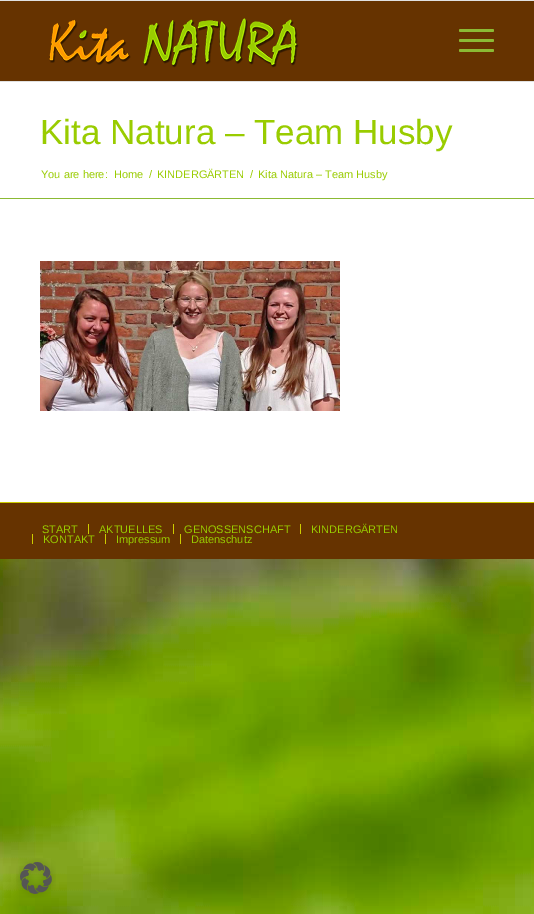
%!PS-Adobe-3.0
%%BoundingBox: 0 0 534 914
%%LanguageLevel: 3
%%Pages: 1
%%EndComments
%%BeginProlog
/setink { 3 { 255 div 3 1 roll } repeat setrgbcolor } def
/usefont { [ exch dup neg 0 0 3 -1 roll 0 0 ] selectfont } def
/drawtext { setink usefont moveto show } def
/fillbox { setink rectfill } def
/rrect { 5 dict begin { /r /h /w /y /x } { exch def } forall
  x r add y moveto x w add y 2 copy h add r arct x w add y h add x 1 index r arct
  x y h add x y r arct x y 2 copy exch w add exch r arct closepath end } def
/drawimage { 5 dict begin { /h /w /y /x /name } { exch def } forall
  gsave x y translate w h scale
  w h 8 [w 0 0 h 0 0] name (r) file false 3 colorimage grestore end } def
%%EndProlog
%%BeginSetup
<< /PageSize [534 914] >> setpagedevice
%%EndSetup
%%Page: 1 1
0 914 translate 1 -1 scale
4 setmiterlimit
0 0 534 914 255 255 255 fillbox
(assets/img1.rgb) 0 559 534 355 drawimage
0 0 534 1 225 225 225 fillbox
0 81 534 1 225 225 225 fillbox
0 1 534 80 102 51 0 fillbox
(assets/img2.rgb) 49 18 250 50 drawimage
139 186 52 setink
459 39 35 3 1.5 rrect fill
459 29 35 3 1.5 rrect fill
459 49 35 3 1.5 rrect fill
0 503 534 56 102 51 0 fillbox
(Kita Natura – Team Husby) 40 144 /LiberationSans-Regular 35 153 204 0 drawtext
(You are here:) 41 178 /LiberationSans-Regular 11 153 204 0 drawtext
(Home) 114 178 /LiberationSans-Regular 11 153 204 0 drawtext
(/) 149 178 /LiberationSans-Regular 11 153 204 0 drawtext
(KINDERGÄRTEN) 157 178 /LiberationSans-Regular 11 153 204 0 drawtext
(/) 250 178 /LiberationSans-Regular 11 153 204 0 drawtext
(Kita Natura – Team Husby) 258 178 /LiberationSans-Regular 11 153 204 0 drawtext
0 198 534 1 139 186 52 fillbox
(assets/img3.rgb) 40 261 300 150 drawimage
0 502 534 1 204 204 0 fillbox
(START) 42 533 /LiberationSans-Regular 11 153 204 0 drawtext
88 524 1 10 204 204 0 fillbox
(AKTUELLES) 99 533 /LiberationSans-Regular 11 153 204 0 drawtext
173 524 1 10 204 204 0 fillbox
(GENOSSENSCHAFT) 184 533 /LiberationSans-Regular 11 153 204 0 drawtext
300 524 1 10 204 204 0 fillbox
(KINDERGÄRTEN) 311 533 /LiberationSans-Regular 11 153 204 0 drawtext
32 534 1 10 204 204 0 fillbox
(KONTAKT) 43 543 /LiberationSans-Regular 11 153 204 0 drawtext
105 534 1 10 204 204 0 fillbox
(Impressum) 116 543 /LiberationSans-Regular 11 153 204 0 drawtext
180 534 1 10 204 204 0 fillbox
(Datenschutz) 191 543 /LiberationSans-Regular 11 153 204 0 drawtext
(assets/img4.rgb) 16 858 40 40 drawimage
showpage
%%EOF
